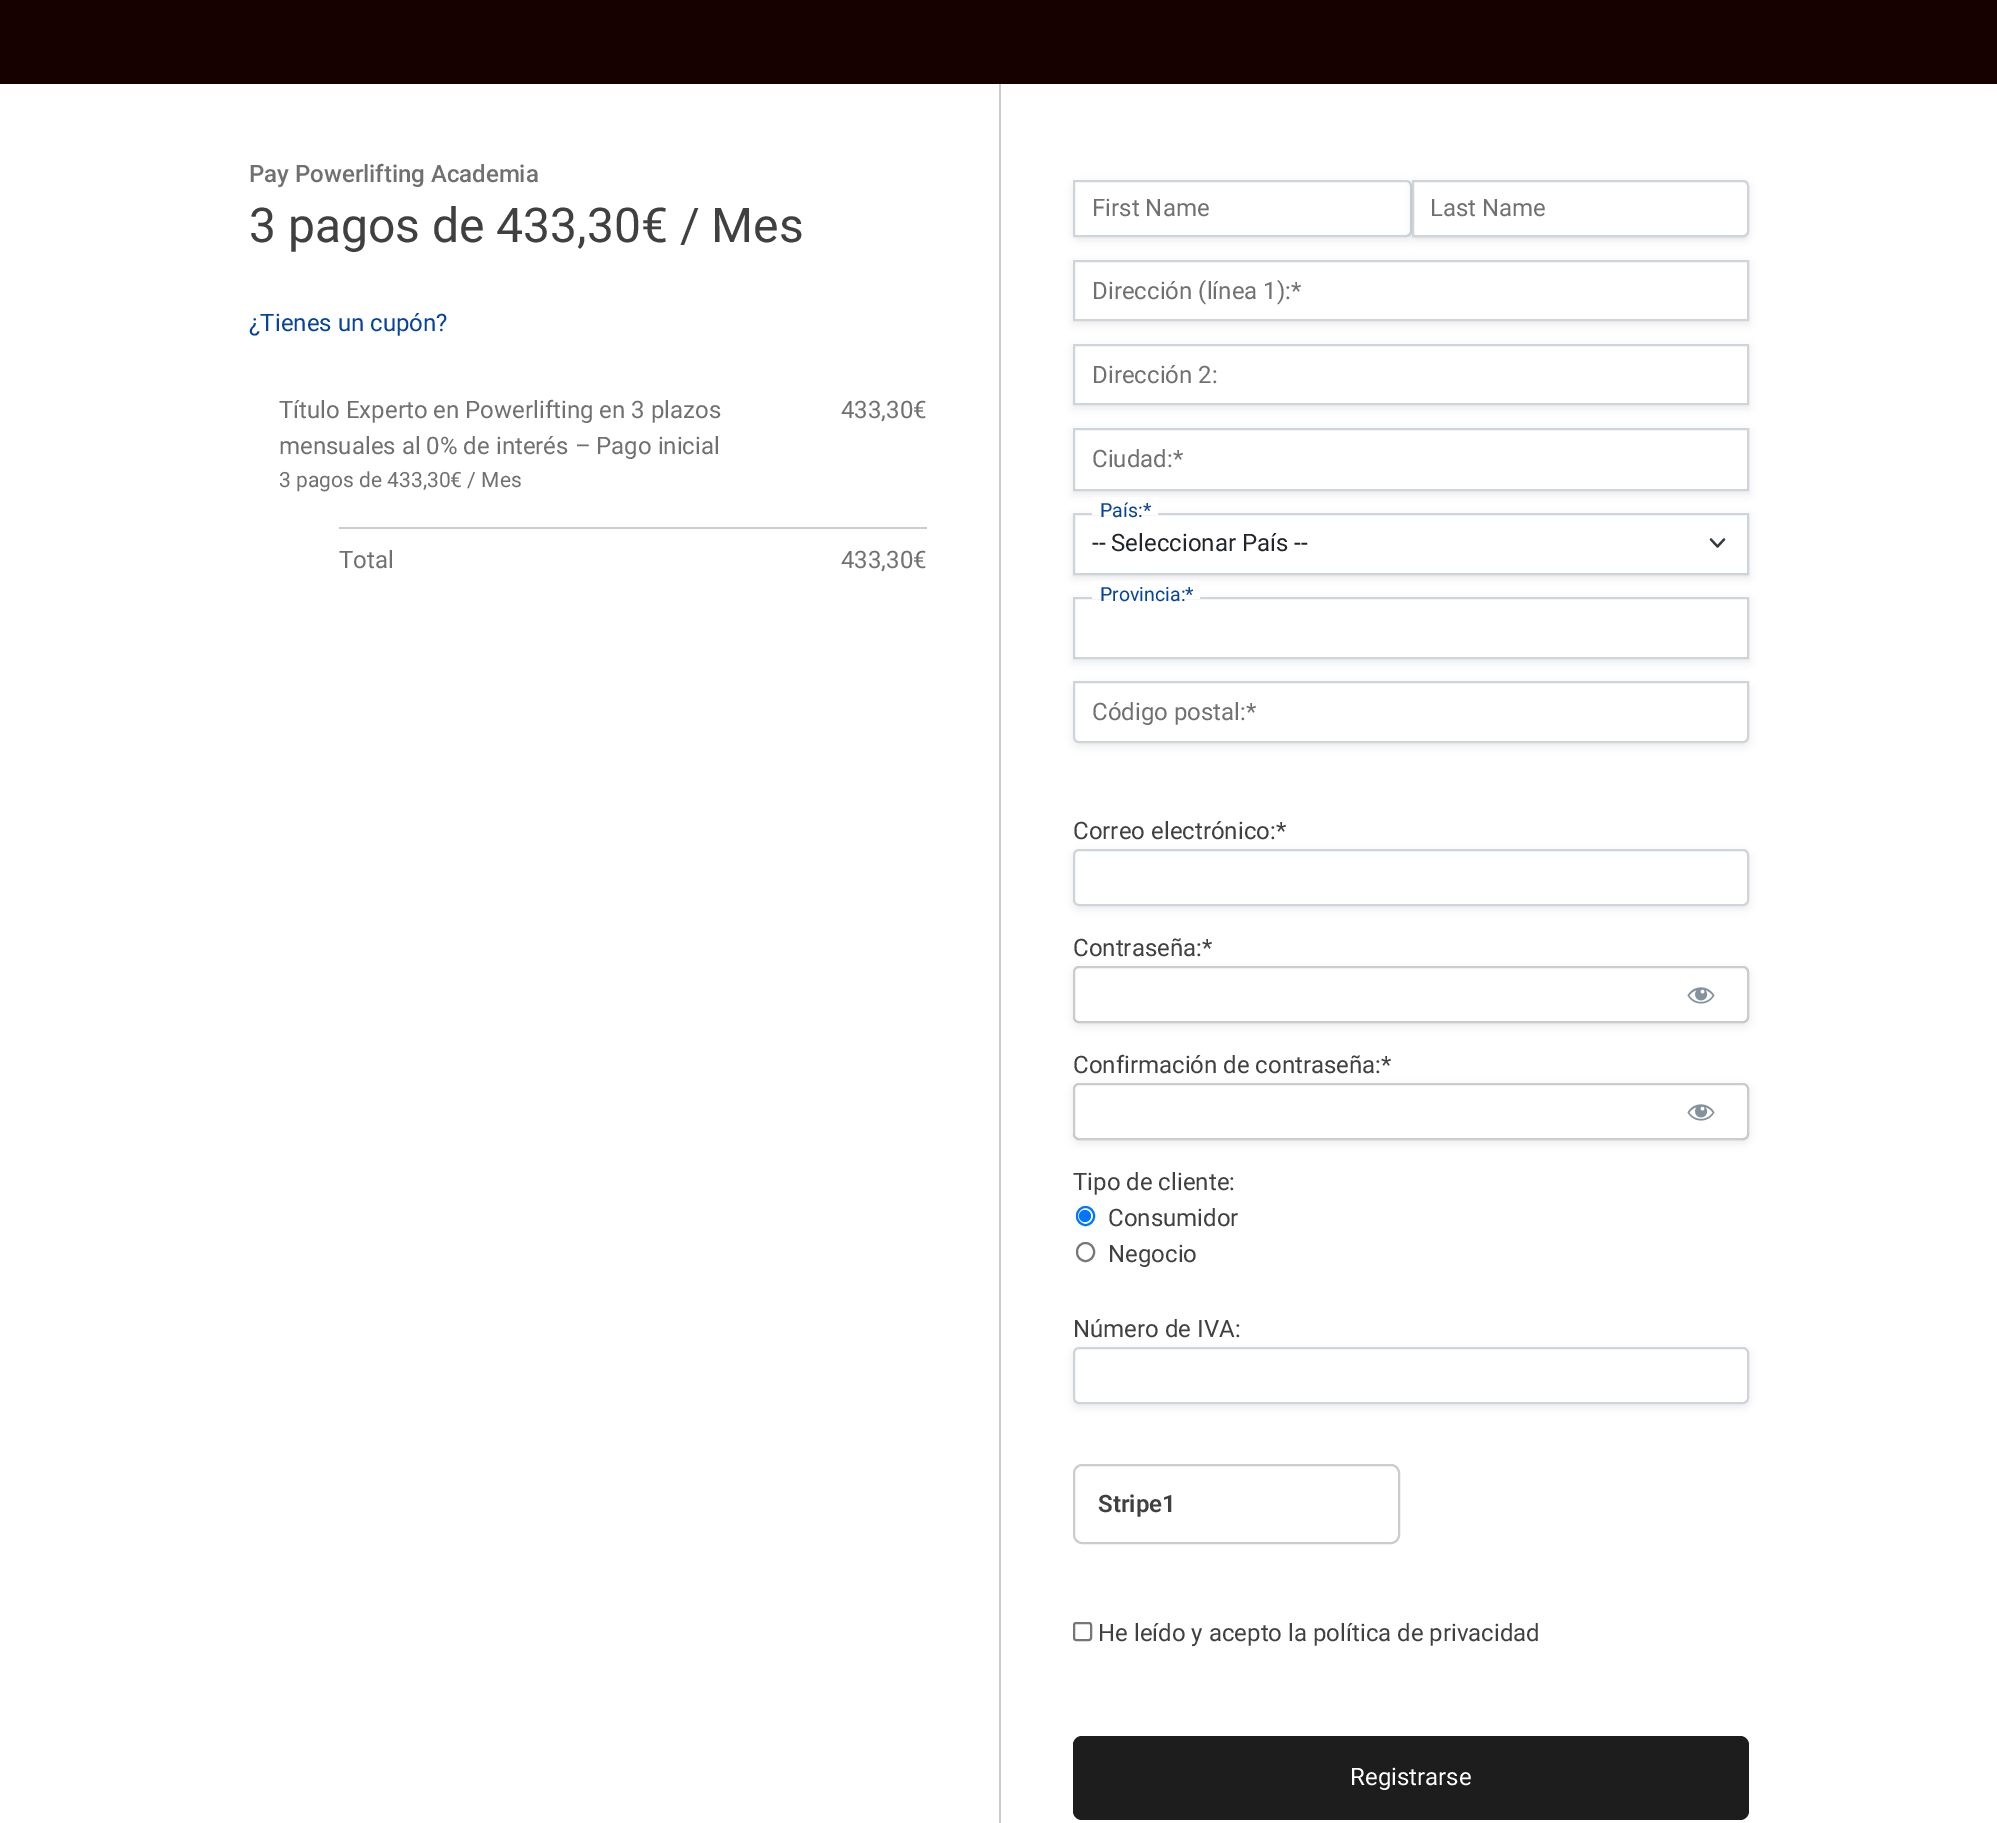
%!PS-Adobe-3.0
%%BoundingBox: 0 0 1997 1823
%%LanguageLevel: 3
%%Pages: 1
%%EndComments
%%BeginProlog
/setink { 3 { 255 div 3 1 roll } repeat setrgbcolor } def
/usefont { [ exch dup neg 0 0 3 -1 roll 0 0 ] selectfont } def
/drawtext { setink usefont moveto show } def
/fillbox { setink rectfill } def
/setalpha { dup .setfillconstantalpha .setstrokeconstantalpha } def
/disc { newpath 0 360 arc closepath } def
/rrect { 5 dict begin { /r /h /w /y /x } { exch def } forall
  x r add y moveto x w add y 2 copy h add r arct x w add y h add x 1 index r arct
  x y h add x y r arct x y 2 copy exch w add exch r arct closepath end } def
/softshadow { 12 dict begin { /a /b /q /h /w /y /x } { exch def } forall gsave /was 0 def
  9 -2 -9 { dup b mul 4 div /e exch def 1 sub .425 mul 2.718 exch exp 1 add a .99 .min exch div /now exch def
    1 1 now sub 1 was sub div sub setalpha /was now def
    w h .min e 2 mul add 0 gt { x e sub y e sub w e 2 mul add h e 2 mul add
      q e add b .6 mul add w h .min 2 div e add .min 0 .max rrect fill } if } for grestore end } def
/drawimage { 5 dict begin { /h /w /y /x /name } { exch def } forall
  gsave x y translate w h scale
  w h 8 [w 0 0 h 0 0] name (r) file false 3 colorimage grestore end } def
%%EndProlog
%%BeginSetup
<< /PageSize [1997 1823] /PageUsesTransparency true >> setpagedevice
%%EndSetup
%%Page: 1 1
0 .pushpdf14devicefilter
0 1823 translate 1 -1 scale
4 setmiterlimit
0 0 1997 1823 255 255 255 fillbox
0 0 1997 84 22 0 0 fillbox
(Pay Powerlifting Academia) 249 182 /Roboto-Medium 24 112 112 112 drawtext
(3 pagos de 433,30€ / Mes) 249 242 /Roboto-Regular 48 64 64 64 drawtext
(¿Tienes un cupón?) 249 331 /Roboto-Regular 24 6 66 158 drawtext
(Título Experto en Powerlifting en 3 plazos) 279 418 /Roboto-Regular 24 112 112 112 drawtext
(mensuales al 0% de interés – Pago inicial) 279 454 /Roboto-Regular 24 112 112 112 drawtext
(3 pagos de 433,30€ / Mes) 279 487 /Roboto-Regular 21 112 112 112 drawtext
(433,30€) 841 418 /Roboto-Regular 24 112 112 112 drawtext
339 527 588 2 204 204 204 fillbox
(Total) 339 568 /Roboto-Regular 24 112 112 112 drawtext
(433,30€) 841 568 /Roboto-Regular 24 112 112 112 drawtext
999 84 2 1739 204 204 204 fillbox
gsave
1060 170 moveto 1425 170 lineto 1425 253 lineto 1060 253 lineto closepath 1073 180 moveto 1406 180 lineto 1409.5 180 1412 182.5 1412 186 curveto 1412 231 lineto 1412 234.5 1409.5 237 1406 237 curveto 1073 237 lineto closepath eoclip newpath
0 0 0 setink
1073 183 339 57 6 4 0.08 softshadow
grestore
206 212 218 setink
2 setlinewidth
1074 181 moveto 1406 181 lineto 1409 181 1411 183 1411 186 curveto 1411 231 lineto 1411 234 1409 236 1406 236 curveto 1074 236 lineto closepath stroke
(First Name) 1092 216 /Roboto-Regular 24 112 112 112 drawtext
0 0 0 setink
1412 182 337 57 6 1 0.04 softshadow
1412 183 337 57 6 4 0.08 softshadow
255 255 255 setink
1413 181 moveto 1743 181 lineto 1746 181 1748 183 1748 186 curveto 1748 231 lineto 1748 234 1746 236 1743 236 curveto 1413 236 lineto closepath gsave fill grestore
206 212 218 setink
stroke
(Last Name) 1430 216 /Roboto-Regular 24 112 112 112 drawtext
gsave
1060 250 moveto 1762 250 lineto 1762 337 lineto 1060 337 lineto closepath 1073 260 moveto 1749 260 lineto 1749 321 lineto 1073 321 lineto closepath eoclip newpath
0 0 0 setink
1073 263 676 61 0 4 0.08 softshadow
grestore
206 212 218 setink
1074 261 674 59 rectstroke
(Dirección \(línea 1\):*) 1092 299 /Roboto-Regular 24 112 112 112 drawtext
gsave
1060 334 moveto 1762 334 lineto 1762 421 lineto 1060 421 lineto closepath 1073 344 moveto 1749 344 lineto 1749 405 lineto 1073 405 lineto closepath eoclip newpath
0 0 0 setink
1073 347 676 61 0 4 0.08 softshadow
grestore
206 212 218 setink
1074 345 674 59 rectstroke
(Dirección 2:) 1092 383 /Roboto-Regular 24 112 112 112 drawtext
gsave
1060 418 moveto 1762 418 lineto 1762 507 lineto 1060 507 lineto closepath 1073 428 moveto 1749 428 lineto 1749 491 lineto 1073 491 lineto closepath eoclip newpath
0 0 0 setink
1073 431 676 63 0 4 0.08 softshadow
grestore
206 212 218 setink
1074 429 674 61 rectstroke
(Ciudad:*) 1092 467 /Roboto-Regular 24 112 112 112 drawtext
0 0 0 setink
1073 515 676 61 0 1 0.04 softshadow
1073 516 676 62 0 4 0.08 softshadow
1075 515 672 58 255 255 255 fillbox
52 58 64 setink
2.2 setlinewidth
1 setlinecap
1 setlinejoin
1711 539.5 moveto 1717.5 546.5 lineto 1724 539.5 lineto stroke
206 212 218 setink
2 setlinewidth
0 setlinecap
0 setlinejoin
1074 514 674 60 rectstroke
1092 497 66 18 255 255 255 fillbox
(País:*) 1100 517 /Roboto-Regular 19.5 6 66 158 drawtext
(-- Seleccionar País --) 1092 551 /Roboto-Regular 24 33 37 41 drawtext
gsave
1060 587 moveto 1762 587 lineto 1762 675 lineto 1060 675 lineto closepath 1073 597 moveto 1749 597 lineto 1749 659 lineto 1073 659 lineto closepath eoclip newpath
0 0 0 setink
1073 600 676 62 0 4 0.08 softshadow
grestore
206 212 218 setink
1074 598 674 60 rectstroke
1092 581 108 18 255 255 255 fillbox
(Provincia:*) 1100 601 /Roboto-Regular 19.5 6 66 158 drawtext
gsave
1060 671 moveto 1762 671 lineto 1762 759 lineto 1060 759 lineto closepath 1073 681 moveto 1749 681 lineto 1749 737 lineto 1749 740.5 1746.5 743 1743 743 curveto 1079 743 lineto 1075.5 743 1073 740.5 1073 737 curveto closepath eoclip newpath
0 0 0 setink
1073 684 676 62 6 4 0.08 softshadow
grestore
206 212 218 setink
1074 682 moveto 1748 682 lineto 1748 737 lineto 1748 740 1746 742 1743 742 curveto 1079 742 lineto 1076 742 1074 740 1074 737 curveto closepath stroke
(Código postal:*) 1092 720 /Roboto-Regular 24 112 112 112 drawtext
gsave
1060 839 moveto 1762 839 lineto 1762 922 lineto 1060 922 lineto closepath 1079 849 moveto 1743 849 lineto 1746.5 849 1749 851.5 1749 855 curveto 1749 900 lineto 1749 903.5 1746.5 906 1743 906 curveto 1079 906 lineto 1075.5 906 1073 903.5 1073 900 curveto 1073 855 lineto 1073 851.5 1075.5 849 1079 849 curveto closepath eoclip newpath
0 0 0 setink
1073 852 676 57 6 4 0.08 softshadow
grestore
(Correo electrónico:*) 1073 839 /Roboto-Regular 24 64 64 64 drawtext
206 212 218 setink
1074 850 674 55 5 rrect stroke
(Contraseña:*) 1073 956 /Roboto-Regular 24 64 64 64 drawtext
gsave
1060 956 moveto 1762 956 lineto 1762 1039 lineto 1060 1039 lineto closepath 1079 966 moveto 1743 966 lineto 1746.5 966 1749 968.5 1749 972 curveto 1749 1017 lineto 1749 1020.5 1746.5 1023 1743 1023 curveto 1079 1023 lineto 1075.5 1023 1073 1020.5 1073 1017 curveto 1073 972 lineto 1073 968.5 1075.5 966 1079 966 curveto closepath eoclip newpath
0 0 0 setink
1073 969 676 57 6 4 0.08 softshadow
grestore
0.2 setalpha
0 0 0 setink
1074 967 674 55 5 rrect stroke
1 setalpha
(assets/img1.rgb) 1687 987 28 17 drawimage
(Confirmación de contraseña:*) 1073 1073 /Roboto-Regular 24 64 64 64 drawtext
gsave
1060 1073 moveto 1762 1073 lineto 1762 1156 lineto 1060 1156 lineto closepath 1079 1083 moveto 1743 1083 lineto 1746.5 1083 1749 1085.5 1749 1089 curveto 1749 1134 lineto 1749 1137.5 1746.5 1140 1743 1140 curveto 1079 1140 lineto 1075.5 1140 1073 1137.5 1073 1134 curveto 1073 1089 lineto 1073 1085.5 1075.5 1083 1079 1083 curveto closepath eoclip newpath
0 0 0 setink
1073 1086 676 57 6 4 0.08 softshadow
grestore
0.2 setalpha
0 0 0 setink
1074 1084 674 55 5 rrect stroke
1 setalpha
(assets/img1.rgb) 1687 1104 28 17 drawimage
(Tipo de cliente:) 1073 1190 /Roboto-Regular 24 64 64 64 drawtext
0 117 255 setink
1077 1207 17 18 8.5 rrect stroke
1085 1216 6 disc fill
(Consumidor) 1108 1226 /Roboto-Regular 24 64 64 64 drawtext
118 118 118 setink
1077 1243 17 18 8.5 rrect stroke
(Negocio) 1108 1262 /Roboto-Regular 24 64 64 64 drawtext
gsave
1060 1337 moveto 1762 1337 lineto 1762 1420 lineto 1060 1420 lineto closepath 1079 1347 moveto 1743 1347 lineto 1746.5 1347 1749 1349.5 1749 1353 curveto 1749 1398 lineto 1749 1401.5 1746.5 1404 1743 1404 curveto 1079 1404 lineto 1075.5 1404 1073 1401.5 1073 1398 curveto 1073 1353 lineto 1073 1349.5 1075.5 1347 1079 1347 curveto closepath eoclip newpath
0 0 0 setink
1073 1350 676 57 6 4 0.08 softshadow
grestore
(Número de IVA:) 1073 1337 /Roboto-Regular 24 64 64 64 drawtext
206 212 218 setink
1074 1348 674 55 5 rrect stroke
204 204 204 setink
1074 1465 325 78 8 rrect stroke
(Stripe1) 1098 1512 /Roboto-SemiBold 24 64 64 64 drawtext
118 118 118 setink
1074 1623 17 17 2 rrect stroke
(He leído y acepto la política de privacidad) 1098 1641 /Roboto-Regular 24 64 64 64 drawtext
29 29 29 setink
1073 1736 676 84 9 rrect fill
(Registrarse) 1350 1785 /Roboto-Regular 24 255 255 255 drawtext
.poppdf14devicefilter showpage
%%EOF
